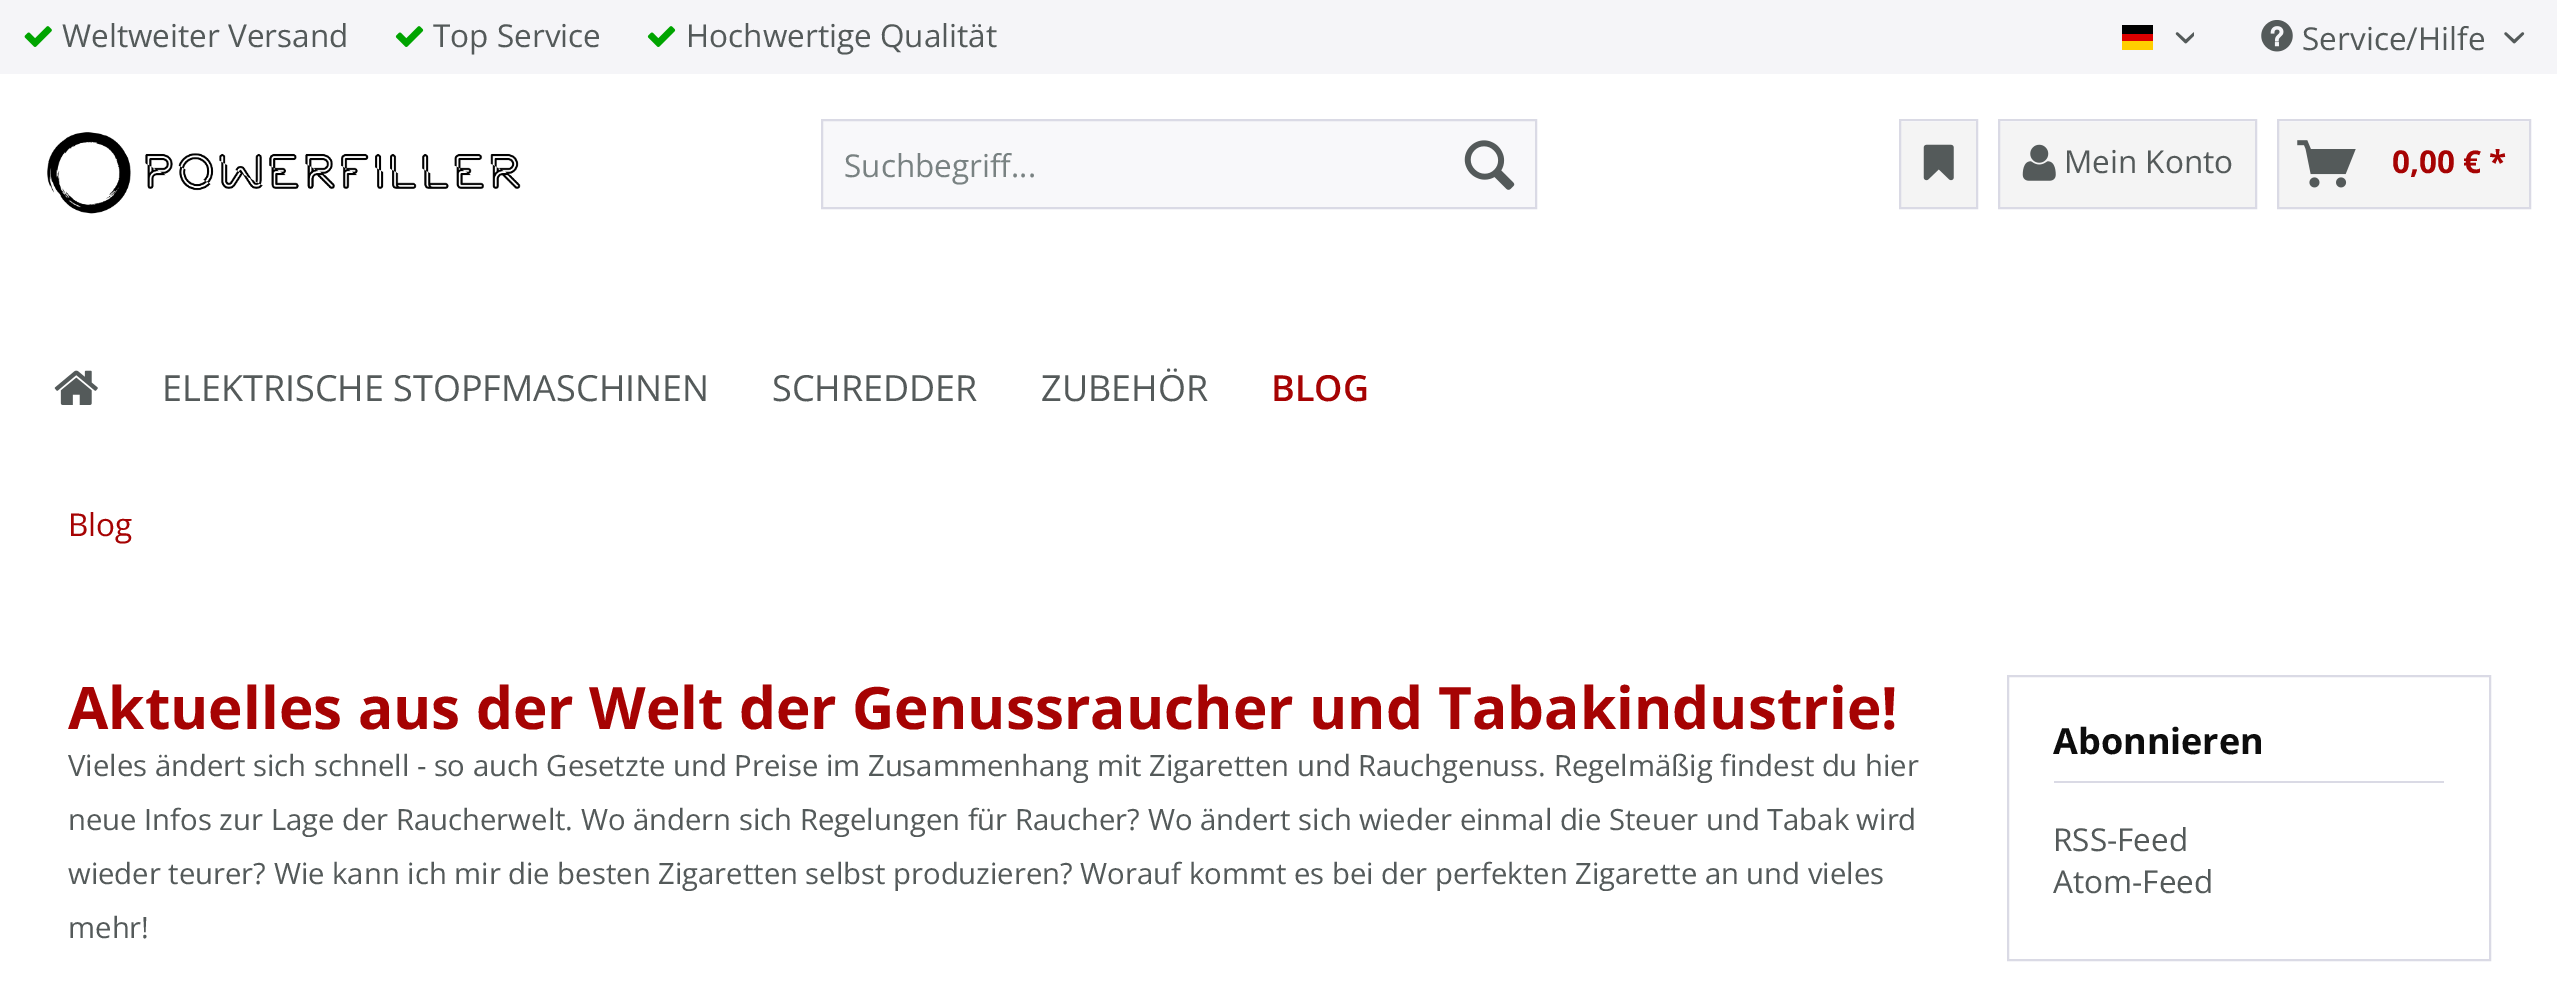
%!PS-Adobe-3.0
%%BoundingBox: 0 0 2557 997
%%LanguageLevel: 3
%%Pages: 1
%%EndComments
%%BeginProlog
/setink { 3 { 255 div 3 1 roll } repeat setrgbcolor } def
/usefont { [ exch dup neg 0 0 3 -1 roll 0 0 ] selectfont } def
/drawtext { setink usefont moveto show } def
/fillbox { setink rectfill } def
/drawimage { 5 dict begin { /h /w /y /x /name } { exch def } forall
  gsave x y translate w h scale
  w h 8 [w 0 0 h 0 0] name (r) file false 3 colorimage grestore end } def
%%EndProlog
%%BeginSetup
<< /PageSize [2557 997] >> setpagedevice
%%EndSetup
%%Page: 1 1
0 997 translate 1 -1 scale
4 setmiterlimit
0 0 2557 997 255 255 255 fillbox
0 0 2557 74 245 245 248 fillbox
(assets/img1.rgb) 24 26 28 21 drawimage
(Weltweiter Versand) 62 47 /OpenSans-Regular 31.5 84 90 90 drawtext
(assets/img2.rgb) 395 26 29 21 drawimage
(Top Service) 433 47 /OpenSans-Regular 31.5 84 90 90 drawtext
(assets/img2.rgb) 647 26 29 21 drawimage
(Hochwertige Qualität) 686 47 /OpenSans-Regular 31.5 84 90 90 drawtext
2122 25 31 9 0 0 0 fillbox
2122 34 31 7 221 0 0 fillbox
2122 41 31 9 255 206 0 fillbox
(assets/img3.rgb) 2175 32 19 12 drawimage
(assets/img4.rgb) 2261 20 32 32 drawimage
(Service/Hilfe) 2302 50 /OpenSans-Regular 31.5 84 90 90 drawtext
(assets/img5.rgb) 2504 32 21 12 drawimage
(assets/img6.rgb) 47 132 474 82 drawimage
248 248 250 setink
822 120 moveto 1536 120 lineto 1536 208 lineto 822 208 lineto closepath gsave fill grestore
218 218 229 setink
2 setlinewidth
stroke
(Suchbegriff...) 844 177 /OpenSans-Regular 31.5 121 130 130 drawtext
(assets/img7.rgb) 1464 140 51 50 drawimage
1901 122 75 85 244 244 244 fillbox
218 218 229 setink
1900 120 77 88 rectstroke
(assets/img8.rgb) 1923 144 31 37 drawimage
2000 122 255 85 244 244 244 fillbox
218 218 229 setink
1999 120 257 88 rectstroke
(assets/img9.rgb) 2022 144 34 37 drawimage
(Mein Konto) 2064 173 /OpenSans-Regular 31.5 84 90 90 drawtext
2279 122 250 85 244 244 244 fillbox
218 218 229 setink
2278 120 252 88 rectstroke
(assets/img10.rgb) 2297 140 59 48 drawimage
(0,00 € *) 2392 173 /OpenSans-Bold 31.5 166 3 3 drawtext
(assets/img11.rgb) 54 370 44 35 drawimage
(ELEKTRISCHE STOPFMASCHINEN) 162 401 /OpenSans-Regular 36 84 90 90 drawtext
(SCHREDDER) 772 401 /OpenSans-Regular 36 84 90 90 drawtext
(ZUBEHÖR) 1041 401 /OpenSans-Regular 36 84 90 90 drawtext
(BLOG) 1271 401 /OpenSans-SemiBold 36 166 3 3 drawtext
(Blog) 68 536 /OpenSans-Regular 31.5 166 3 3 drawtext
(Aktuelles aus der Welt der Genussraucher und Tabakindustrie!) 68 729 /OpenSans-Bold 58.5 166 3 3 drawtext
(Vieles ändert sich schnell - so auch Gesetzte und Preise im Zusammenhang mit Zigaretten und Rauchgenuss. Regelmäßig findest du hier) 68 776 /OpenSans-Regular 29.25 84 90 90 drawtext
(neue Infos zur Lage der Raucherwelt. Wo ändern sich Regelungen für Raucher? Wo ändert sich wieder einmal die Steuer und Tabak wird) 68 830 /OpenSans-Regular 29.25 84 90 90 drawtext
(wieder teurer? Wie kann ich mir die besten Zigaretten selbst produzieren? Worauf kommt es bei der perfekten Zigarette an und vieles) 68 884 /OpenSans-Regular 29.25 84 90 90 drawtext
(mehr!) 68 938 /OpenSans-Regular 29.25 84 90 90 drawtext
218 218 229 setink
2008 676 482 284 rectstroke
2054 781 390 2 218 218 229 fillbox
(Abonnieren) 2053 754 /OpenSans-Bold 36 13 13 13 drawtext
(RSS-Feed) 2053 851 /OpenSans-Regular 31.5 84 90 90 drawtext
(Atom-Feed) 2053 893 /OpenSans-Regular 31.5 84 90 90 drawtext
showpage
%%EOF
